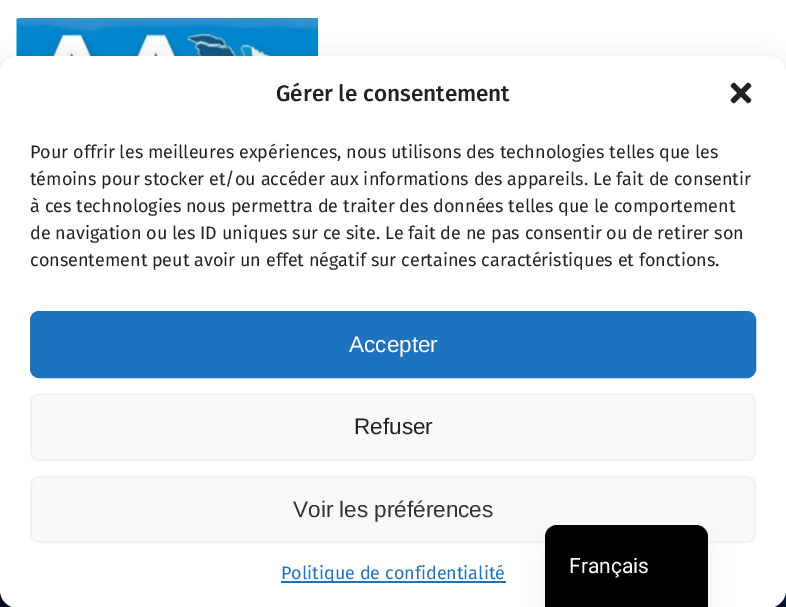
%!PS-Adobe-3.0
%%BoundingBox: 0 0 786 607
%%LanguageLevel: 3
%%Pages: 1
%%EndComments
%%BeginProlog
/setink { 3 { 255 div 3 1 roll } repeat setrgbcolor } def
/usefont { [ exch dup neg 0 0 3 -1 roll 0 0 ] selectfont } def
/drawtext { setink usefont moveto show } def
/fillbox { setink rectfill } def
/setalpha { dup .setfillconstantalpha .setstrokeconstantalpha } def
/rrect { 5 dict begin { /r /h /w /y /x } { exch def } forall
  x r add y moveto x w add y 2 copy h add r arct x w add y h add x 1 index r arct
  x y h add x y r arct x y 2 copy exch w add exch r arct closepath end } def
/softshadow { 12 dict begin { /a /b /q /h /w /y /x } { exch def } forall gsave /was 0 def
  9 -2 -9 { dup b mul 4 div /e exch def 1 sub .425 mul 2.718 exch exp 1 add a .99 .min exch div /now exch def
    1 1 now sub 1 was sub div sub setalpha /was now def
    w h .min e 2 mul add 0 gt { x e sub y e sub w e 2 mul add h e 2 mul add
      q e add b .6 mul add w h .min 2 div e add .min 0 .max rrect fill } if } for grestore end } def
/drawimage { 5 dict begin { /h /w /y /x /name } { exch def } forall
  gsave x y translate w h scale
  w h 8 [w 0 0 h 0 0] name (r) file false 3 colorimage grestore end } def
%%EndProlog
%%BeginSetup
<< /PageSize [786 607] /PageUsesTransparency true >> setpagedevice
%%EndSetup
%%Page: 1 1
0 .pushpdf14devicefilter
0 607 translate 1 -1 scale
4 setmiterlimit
0 0 786 607 255 255 255 fillbox
(assets/img1.rgb) 16 18 302 39 drawimage
(assets/img2.rgb) 0 590 786 17 drawimage
0 0 0 setink
0 65 786 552 18 4.5 0.23 softshadow
0 71 786 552 18 15 0.19 softshadow
255 255 255 setink
0 56 786 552 18 rrect fill
(Gérer le consentement) 276 101 /FiraSans-Medium 22.5 34 34 34 drawtext
(assets/img3.rgb) 730 82 22 22 drawimage
(Pour offrir les meilleures expériences, nous utilisons des technologies telles que les) 30 158 /FiraSans-Regular 18 34 34 34 drawtext
(témoins pour stocker et/ou accéder aux informations des appareils. Le fait de consentir) 30 185 /FiraSans-Regular 18 34 34 34 drawtext
(à ces technologies nous permettra de traiter des données telles que le comportement) 30 212 /FiraSans-Regular 18 34 34 34 drawtext
(de navigation ou les ID uniques sur ce site. Le fait de ne pas consentir ou de retirer son) 30 239 /FiraSans-Regular 18 34 34 34 drawtext
(consentement peut avoir un effet négatif sur certaines caractéristiques et fonctions.) 30 266 /FiraSans-Regular 18 34 34 34 drawtext
30 115 190 setink
31 312 724 65 8 rrect gsave fill grestore
2 setlinewidth
stroke
(Accepter) 349 352 /LiberationSans-Regular 22.5 255 255 255 drawtext
249 249 249 setink
31 394 724 66 8 rrect gsave fill grestore
242 242 242 setink
stroke
(Refuser) 354 434 /LiberationSans-Regular 22.5 34 34 34 drawtext
249 249 249 setink
31 477 724 65 8 rrect gsave fill grestore
242 242 242 setink
stroke
(Voir les préférences) 293 517 /LiberationSans-Regular 22.5 51 51 51 drawtext
281 581 225 2 30 115 190 fillbox
(Politique de confidentialité) 281 579 /FiraSans-Regular 18 30 115 190 drawtext
0 0 0 setink
545 540 163 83 12 15 0.05 softshadow
557 525 moveto 696 525 lineto 702.5 525 708 530.5 708 537 curveto 708 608 lineto 545 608 lineto 545 537 lineto 545 530.5 550.5 525 557 525 curveto closepath fill
(Français) 569 573 /Roboto-Regular 21 255 255 255 drawtext
.poppdf14devicefilter showpage
%%EOF
